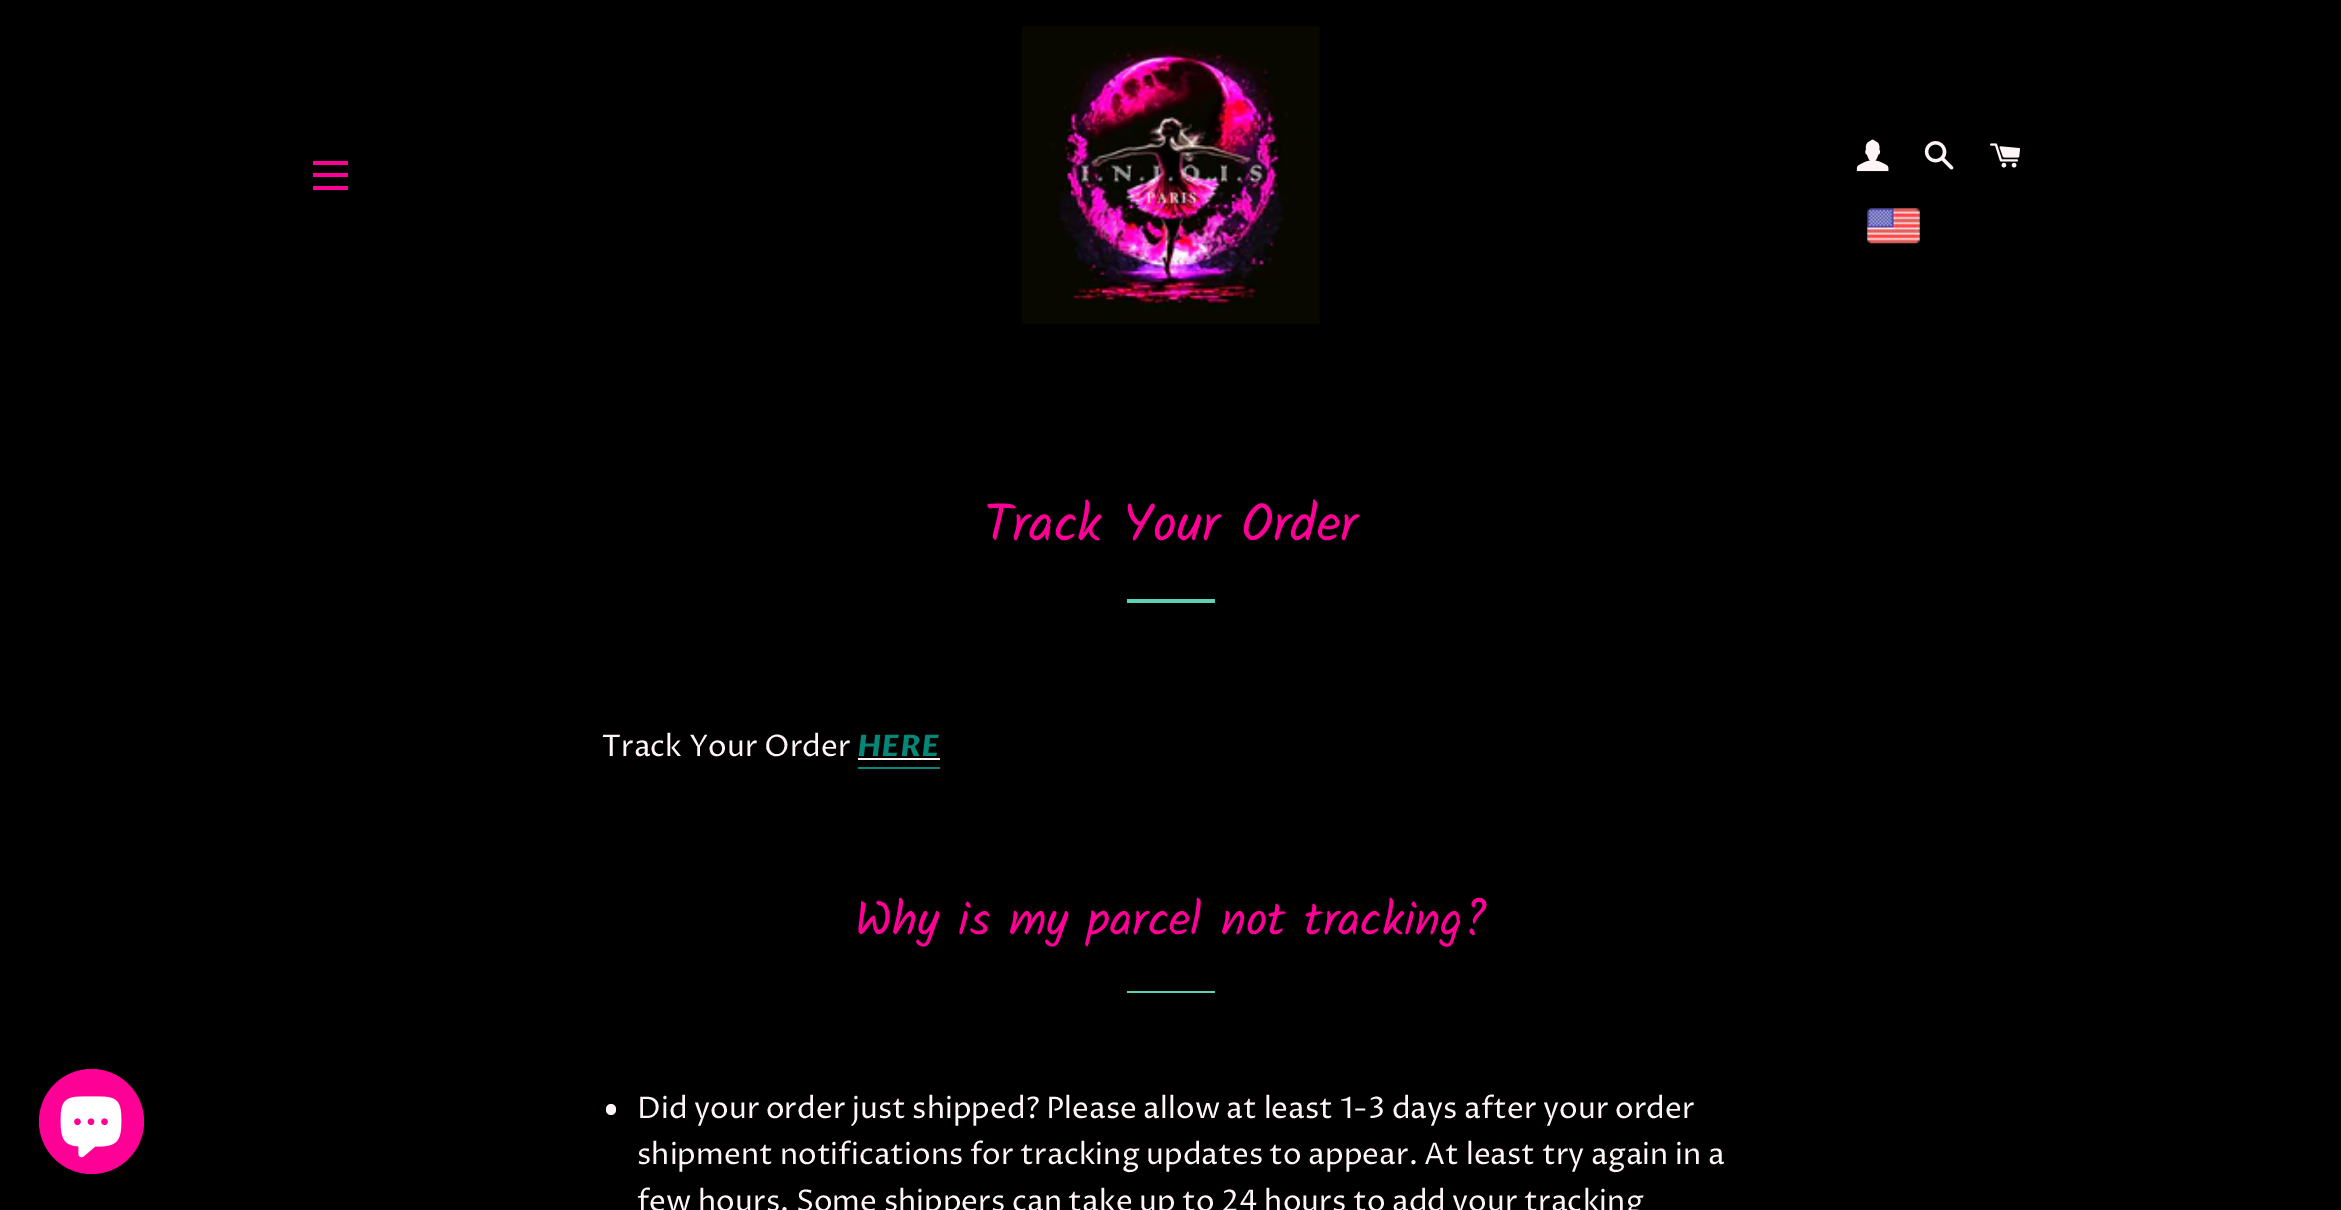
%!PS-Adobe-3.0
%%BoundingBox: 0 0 2341 1210
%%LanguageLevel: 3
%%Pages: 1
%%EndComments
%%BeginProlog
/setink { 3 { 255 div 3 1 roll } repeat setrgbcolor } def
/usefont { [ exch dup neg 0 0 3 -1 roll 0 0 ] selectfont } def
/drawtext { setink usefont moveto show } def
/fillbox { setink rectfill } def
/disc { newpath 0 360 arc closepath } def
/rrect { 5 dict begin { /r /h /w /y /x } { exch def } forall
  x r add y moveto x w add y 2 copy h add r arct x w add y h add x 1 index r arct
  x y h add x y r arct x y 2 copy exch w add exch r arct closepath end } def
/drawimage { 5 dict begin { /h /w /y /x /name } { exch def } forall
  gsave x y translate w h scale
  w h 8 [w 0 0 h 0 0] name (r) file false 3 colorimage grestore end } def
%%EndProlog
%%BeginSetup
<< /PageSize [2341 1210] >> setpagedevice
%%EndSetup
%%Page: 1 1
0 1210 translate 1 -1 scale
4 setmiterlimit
0 0 2341 1210 0 0 0 fillbox
313 161 35 4 255 0 151 fillbox
313 173 35 4 255 0 151 fillbox
313 186 35 4 255 0 151 fillbox
(assets/img1.rgb) 1022 26 298 298 drawimage
(assets/img2.rgb) 1856 139 33 33 drawimage
(assets/img3.rgb) 1924 141 30 29 drawimage
(assets/img4.rgb) 1990 143 30 25 drawimage
(assets/img5.rgb) 1867 208 53 36 drawimage
91.5 1121.5 52.5 disc fill
(assets/img6.rgb) 60 1096 62 62 drawimage
(Track Your Order) 984 541 /Kalam-Regular 52.5 255 0 151 drawtext
1127 599 88 4 93 210 180 fillbox
(Track Your Order) 602 756 /ProzaLibre-Regular 29.75 255 244 246 drawtext
(HERE) 857 756 /ProzaLibre-BoldItalic 29.75 5 134 119 drawtext
858 767 82 2 5 134 119 fillbox
858 758 82 2 255 244 246 fillbox
(Why is my parcel not tracking?) 855 935 /Kalam-Regular 47.25 255 0 151 drawtext
1127 991 88 2 93 210 180 fillbox
255 244 246 setink
606 1104 10 11 5 rrect fill
(Did your order just shipped? Please allow at least 1-3 days after your order) 637 1118 /ProzaLibre-Regular 29.75 255 244 246 drawtext
(shipment notifications for tracking updates to appear. At least try again in a) 637 1164 /ProzaLibre-Regular 29.75 255 244 246 drawtext
(few hours. Some shippers can take up to 24 hours to add your tracking) 637 1211 /ProzaLibre-Regular 29.75 255 244 246 drawtext
showpage
%%EOF
